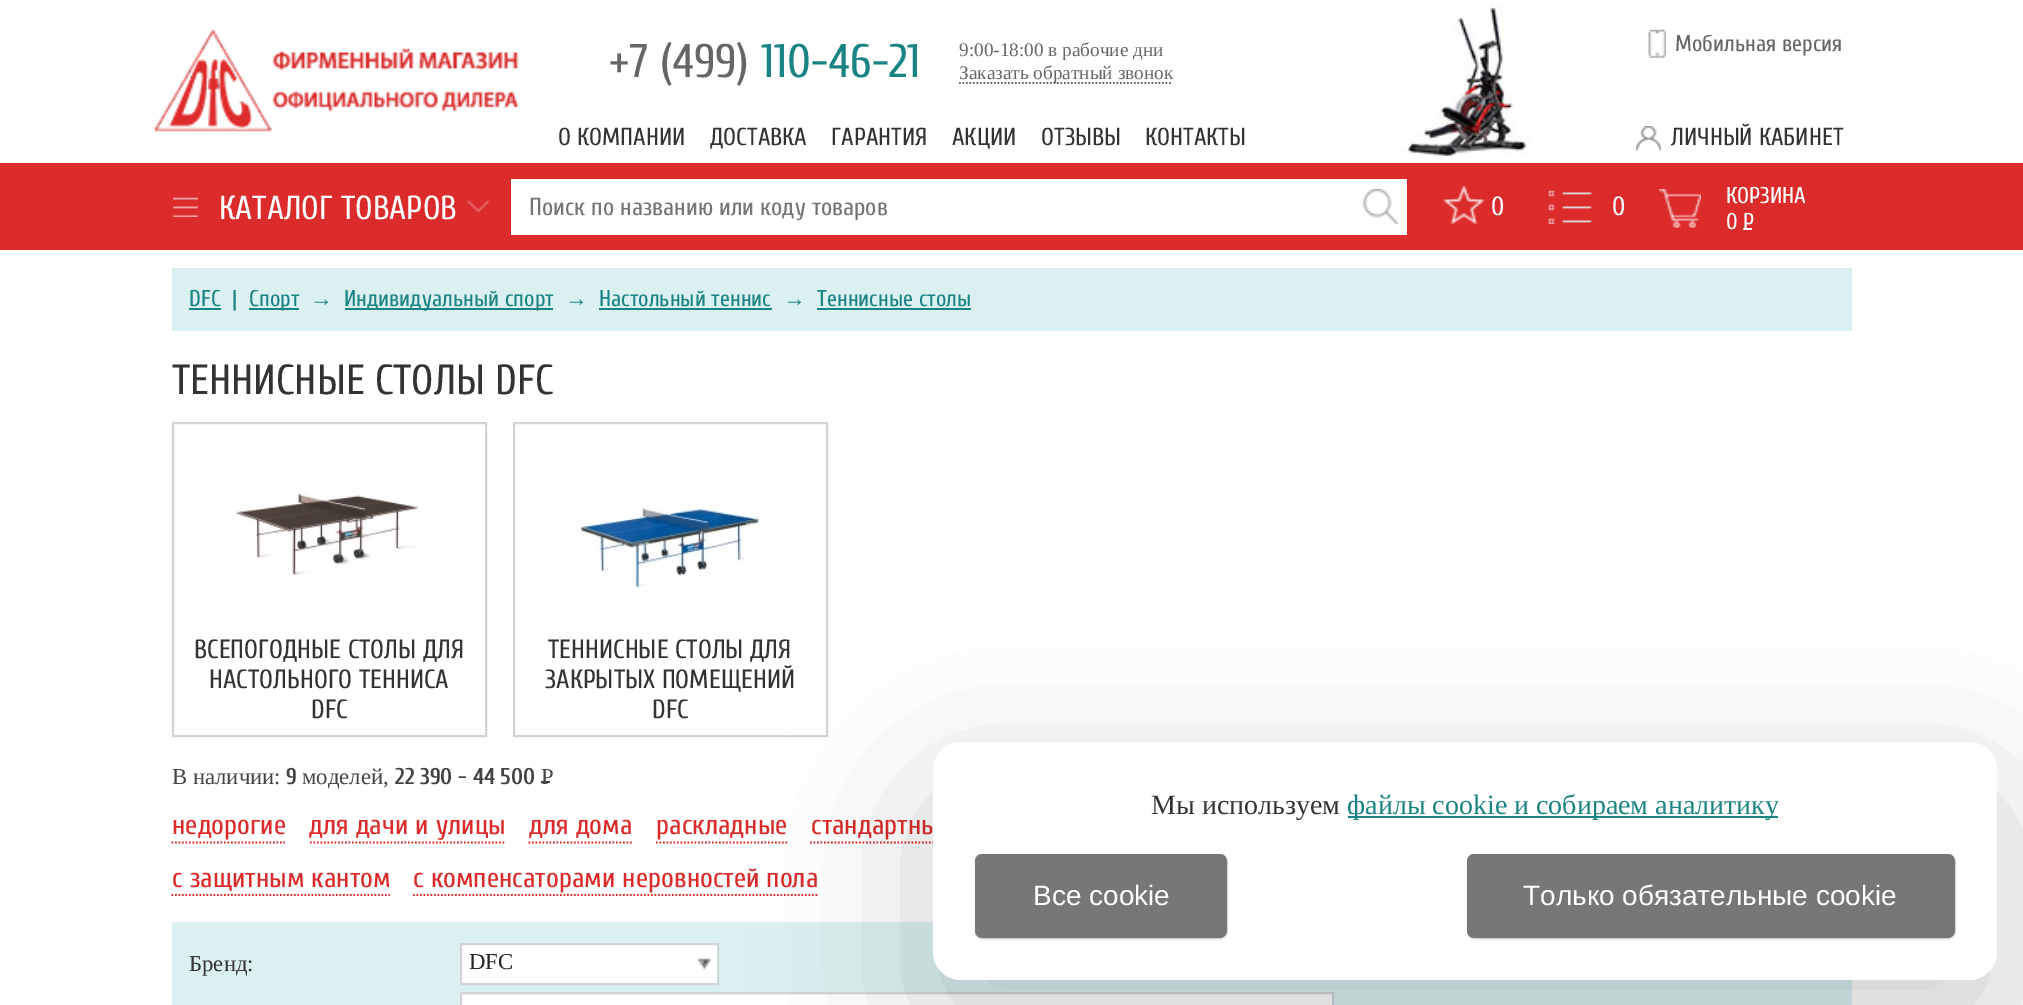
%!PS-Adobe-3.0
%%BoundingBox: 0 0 2023 1005
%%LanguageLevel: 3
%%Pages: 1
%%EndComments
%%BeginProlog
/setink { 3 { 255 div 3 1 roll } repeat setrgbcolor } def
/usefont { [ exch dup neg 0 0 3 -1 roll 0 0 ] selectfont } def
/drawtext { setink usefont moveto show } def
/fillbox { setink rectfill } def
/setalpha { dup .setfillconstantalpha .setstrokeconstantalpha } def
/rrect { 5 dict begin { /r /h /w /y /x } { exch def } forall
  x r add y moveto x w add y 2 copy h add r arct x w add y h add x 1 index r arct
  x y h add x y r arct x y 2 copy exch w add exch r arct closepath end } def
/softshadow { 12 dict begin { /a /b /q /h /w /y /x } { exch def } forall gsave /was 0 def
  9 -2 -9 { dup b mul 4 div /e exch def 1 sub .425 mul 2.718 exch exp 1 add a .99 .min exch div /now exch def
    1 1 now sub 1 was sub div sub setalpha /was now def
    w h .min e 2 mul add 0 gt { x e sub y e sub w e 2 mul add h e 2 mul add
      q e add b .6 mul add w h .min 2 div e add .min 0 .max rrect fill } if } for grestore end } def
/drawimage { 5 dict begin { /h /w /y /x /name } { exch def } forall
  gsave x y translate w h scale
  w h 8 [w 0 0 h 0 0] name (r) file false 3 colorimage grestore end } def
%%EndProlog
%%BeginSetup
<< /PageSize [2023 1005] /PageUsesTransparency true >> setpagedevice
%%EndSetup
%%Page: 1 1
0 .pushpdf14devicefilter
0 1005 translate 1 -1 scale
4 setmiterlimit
0 0 2023 1005 255 255 255 fillbox
(assets/img1.rgb) 154 29 365 103 drawimage
(+7 \(499\)) 609 77 /Cuprum-Regular 47 102 102 102 drawtext
(110-46-21) 761 77 /Cuprum-Regular 47 26 131 131 drawtext
(9:00-18:00 в рабочие дни) 959 56 /LiberationSerif-Regular 19.25 102 102 102 drawtext
1.8 setlinewidth
[1.75 1.75] 0 setdash
959 83 moveto 1172.5 83 lineto stroke
(Заказать обратный звонок) 959 79 /LiberationSerif-Regular 19.25 102 102 102 drawtext
(assets/img2.rgb) 1398 4 132 152 drawimage
(assets/img3.rgb) 1648 29 18 29 drawimage
(Мобильная версия) 1675 51 /Cuprum-Regular 22.75 102 102 102 drawtext
(О КОМПАНИИ) 558 145 /Cuprum-Regular 24.5 51 51 51 drawtext
(ДОСТАВКА) 710 145 /Cuprum-Regular 24.5 51 51 51 drawtext
(ГАРАНТИЯ) 831 145 /Cuprum-Regular 24.5 51 51 51 drawtext
(АКЦИИ) 952 145 /Cuprum-Regular 24.5 51 51 51 drawtext
(ОТЗЫВЫ) 1041 145 /Cuprum-Regular 24.5 51 51 51 drawtext
(КОНТАКТЫ) 1145 145 /Cuprum-Regular 24.5 51 51 51 drawtext
(assets/img4.rgb) 1636 126 25 25 drawimage
(ЛИЧНЫЙ КАБИНЕТ) 1671 145 /Cuprum-Regular 24.5 51 51 51 drawtext
0 163 2023 87 219 43 43 fillbox
(assets/img5.rgb) 173 197 25 20 drawimage
(КАТАЛОГ ТОВАРОВ) 219 219 /Cuprum-Regular 33.25 255 255 255 drawtext
(assets/img6.rgb) 467 200 23 12 drawimage
511 179 896 56 255 255 255 fillbox
(assets/img7.rgb) 1363 189 36 35 drawimage
(Поиск по названию или коду товаров) 529 215 /Cuprum-Regular 24.5 117 117 117 drawtext
(assets/img8.rgb) 1443 185 41 39 drawimage
(0) 1491 215 /Cuprum-Regular 26.25 255 255 255 drawtext
(assets/img9.rgb) 1548 190 45 34 drawimage
(0) 1612 215 /Cuprum-Regular 26.25 255 255 255 drawtext
(assets/img10.rgb) 1659 189 42 39 drawimage
(КОРЗИНА) 1726 203 /Cuprum-Regular 22.75 255 255 255 drawtext
(0) 1726 229 /Cuprum-Regular 22.75 255 255 255 drawtext
1743 228 9 2 255 255 255 fillbox
(Р) 1743 229 /Cuprum-Regular 22.75 255 255 255 drawtext
172 268 1680 63 219 240 240 fillbox
(DFC) 189 306 /Cuprum-Regular 22.75 26 131 131 drawtext
189 308 32 2 26 131 131 fillbox
(|) 232 306 /Cuprum-Regular 22.75 26 131 131 drawtext
249 308 50 2 26 131 131 fillbox
(Спорт) 249 306 /Cuprum-Regular 22.75 26 131 131 drawtext
(→) 310 306 /LiberationSerif-Regular 22.75 26 131 131 drawtext
345 308 208 2 26 131 131 fillbox
(Индивидуальный спорт) 344 306 /Cuprum-Regular 22.75 26 131 131 drawtext
(→) 565 306 /LiberationSerif-Regular 22.75 26 131 131 drawtext
(Настольный теннис) 599 306 /Cuprum-Regular 22.75 26 131 131 drawtext
599 308 173 2 26 131 131 fillbox
(→) 783 306 /LiberationSerif-Regular 22.75 26 131 131 drawtext
(Теннисные столы) 817 306 /Cuprum-Regular 22.75 26 131 131 drawtext
817 308 154 2 26 131 131 fillbox
(ТЕННИСНЫЕ СТОЛЫ DFC) 172 394 /Cuprum-Regular 42 51 51 51 drawtext
210 212 217 setink
2 setlinewidth
[] 0 setdash
173 423 313 313 rectstroke
(assets/img11.rgb) 236 485 183 91 drawimage
(ВСЕПОГОДНЫЕ СТОЛЫ ДЛЯ) 194 658 /Cuprum-Regular 26.25 51 51 51 drawtext
(НАСТОЛЬНОГО ТЕННИСА) 209 688 /Cuprum-Regular 26.25 51 51 51 drawtext
(DFC) 311 718 /Cuprum-Regular 26.25 51 51 51 drawtext
210 212 217 setink
514 423 313 313 rectstroke
(assets/img12.rgb) 578 501 182 90 drawimage
(ТЕННИСНЫЕ СТОЛЫ ДЛЯ) 548 658 /Cuprum-Regular 26.25 51 51 51 drawtext
(ЗАКРЫТЫХ ПОМЕЩЕНИЙ) 545 688 /Cuprum-Regular 26.25 51 51 51 drawtext
(DFC) 652 718 /Cuprum-Regular 26.25 51 51 51 drawtext
(В наличии:) 172 784 /LiberationSerif-Regular 22.75 68 68 68 drawtext
(9) 286 784 /Cuprum-Bold 22.75 68 68 68 drawtext
(моделей,) 302 784 /LiberationSerif-Regular 22.75 68 68 68 drawtext
(22 390 - 44 500) 395 784 /Cuprum-Bold 22.75 68 68 68 drawtext
541 781 9 2 68 68 68 fillbox
(Р) 541 784 /LiberationSerif-Regular 22.75 68 68 68 drawtext
(недорогие) 172 834 /Cuprum-Regular 28 219 43 43 drawtext
1.8 setlinewidth
[1.75 1.75] 0 setdash
171.5 842.5 moveto 285 842.5 lineto stroke
(для дачи и улицы) 309 834 /Cuprum-Regular 28 219 43 43 drawtext
310 842.5 moveto 506 842.5 lineto stroke
(для дома) 529 834 /Cuprum-Regular 28 219 43 43 drawtext
528.5 842.5 moveto 633.5 842.5 lineto stroke
(раскладные) 656 834 /Cuprum-Regular 28 219 43 43 drawtext
656 842.5 moveto 787.5 842.5 lineto stroke
(стандартны) 811 834 /Cuprum-Regular 28 219 43 43 drawtext
810 842.5 moveto 950 842.5 lineto stroke
(с защитным кантом) 172 887 /Cuprum-Regular 28 219 43 43 drawtext
171.5 895 moveto 390 895 lineto stroke
(с компенсаторами неровностей пола) 413 887 /Cuprum-Regular 28 219 43 43 drawtext
413 895 moveto 819 895 lineto stroke
172 922 1680 83 219 240 240 fillbox
(Бренд:) 189 971 /LiberationSerif-Regular 22.75 51 51 51 drawtext
255 255 255 setink
461 944 moveto 718 944 lineto 718 984 lineto 461 984 lineto closepath gsave fill grestore
210 212 217 setink
2 setlinewidth
[] 0 setdash
stroke
(DFC) 469 969 /LiberationSerif-Regular 22.75 38 38 38 drawtext
(assets/img13.rgb) 698 958 13 12 drawimage
255 255 255 setink
461 993 moveto 1333 993 lineto 1333 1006 lineto 461 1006 lineto closepath gsave fill grestore
210 212 217 setink
stroke
0 0 0 setink
919 781 1092 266 42 77 0.17 softshadow
255 255 255 setink
933 742 1064 238 28 rrect fill
(Мы используем) 1151 814 /LiberationSerif-Regular 28 51 51 51 drawtext
1348 816 430 2 26 131 131 fillbox
(файлы cookie и собираем аналитику) 1347 814 /LiberationSerif-Regular 28 26 131 131 drawtext
0 0 0 setink
975 856 252 84 7 1 0.07 softshadow
119 119 119 setink
976 855 250 82 6 rrect gsave fill grestore
stroke
(Все cookie) 1033 905 /LiberationSans-Regular 28 255 255 255 drawtext
0 0 0 setink
1467 856 488 84 7 1 0.07 softshadow
119 119 119 setink
1468 855 486 82 6 rrect gsave fill grestore
stroke
(Только обязательные cookie) 1523 905 /LiberationSans-Regular 28 255 255 255 drawtext
.poppdf14devicefilter showpage
%%EOF
